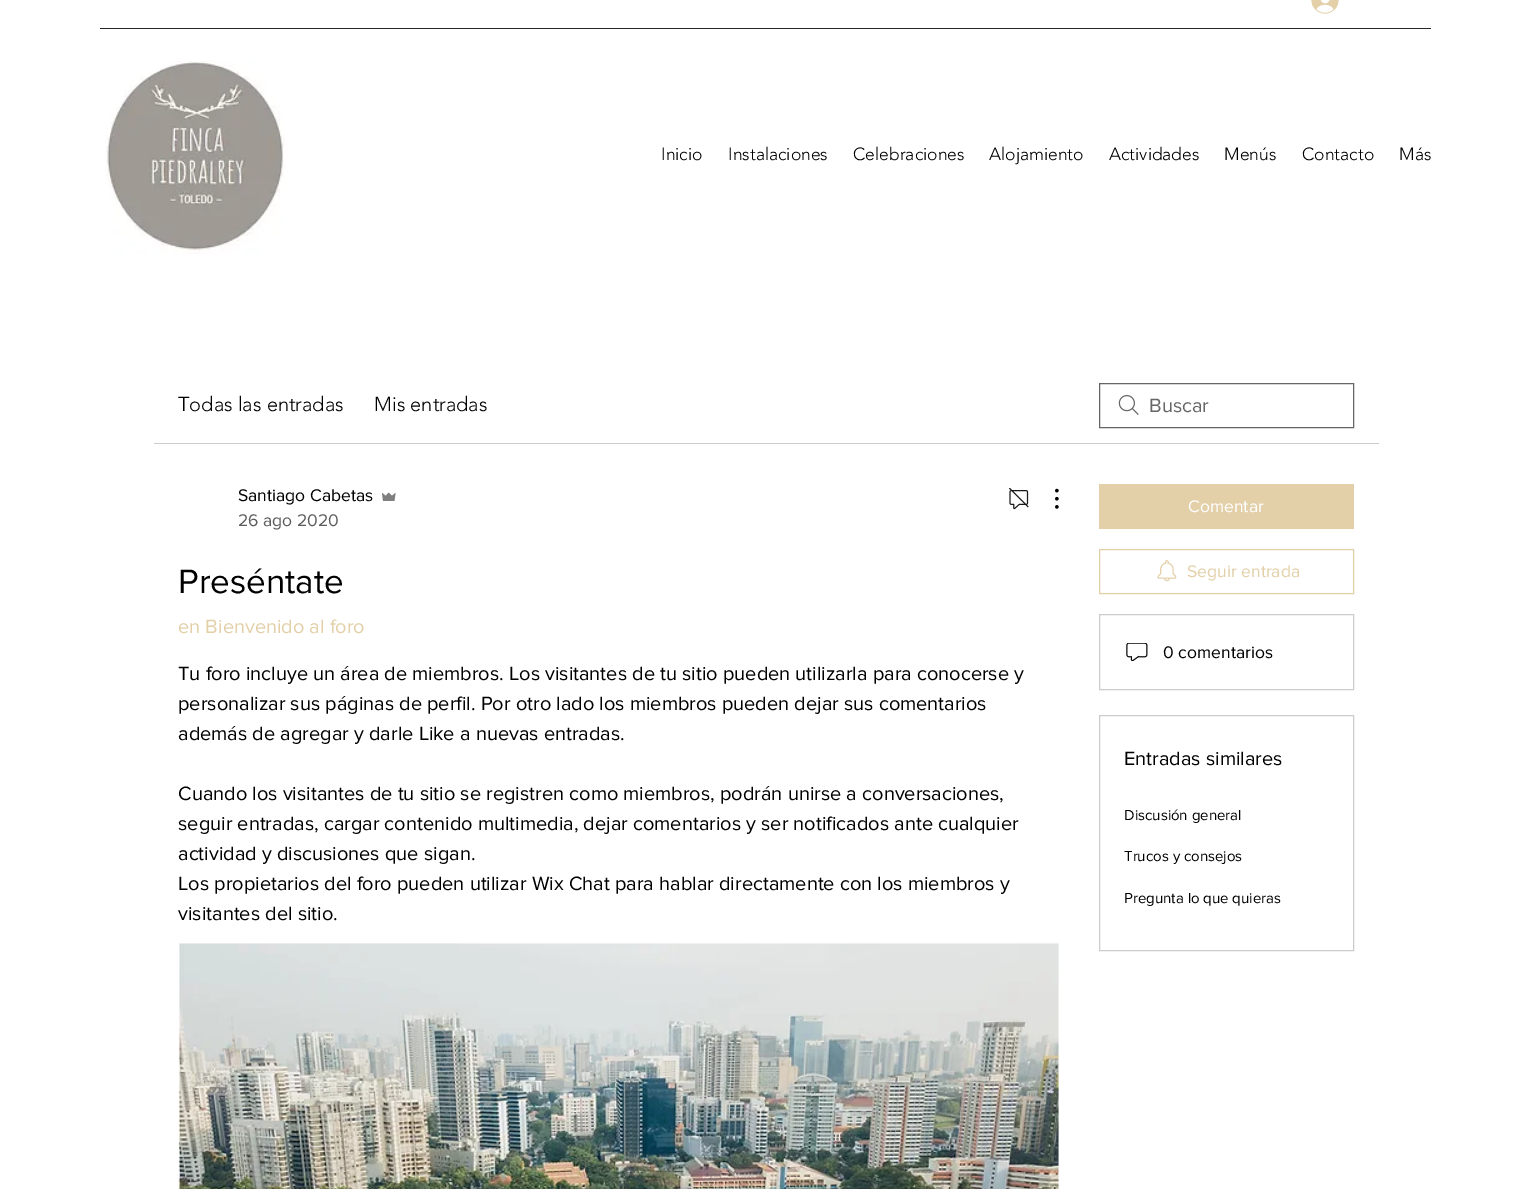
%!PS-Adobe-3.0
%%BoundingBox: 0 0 1531 1189
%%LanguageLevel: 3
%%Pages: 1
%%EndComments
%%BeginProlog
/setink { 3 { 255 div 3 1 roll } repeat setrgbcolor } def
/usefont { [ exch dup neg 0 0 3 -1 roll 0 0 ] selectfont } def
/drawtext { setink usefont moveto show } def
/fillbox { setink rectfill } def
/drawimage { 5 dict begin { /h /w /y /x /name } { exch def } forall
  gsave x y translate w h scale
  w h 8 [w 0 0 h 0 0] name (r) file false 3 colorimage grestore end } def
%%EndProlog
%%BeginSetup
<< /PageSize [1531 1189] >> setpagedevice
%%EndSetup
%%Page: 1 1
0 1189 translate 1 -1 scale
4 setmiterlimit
0 0 1531 1189 255 255 255 fillbox
(assets/img1.rgb) 1311 0 28 14 drawimage
100 28 1331 1 38 38 38 fillbox
(assets/img2.rgb) 105 61 180 193 drawimage
(Inicio) 661 160 /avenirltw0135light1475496-Light 17.5 0 0 0 drawtext
(Instalaciones) 728 160 /avenirltw0135light1475496-Light 17.5 0 0 0 drawtext
(Celebraciones) 853 160 /avenirltw0135light1475496-Light 17.5 0 0 0 drawtext
(Alojamiento) 989 160 /avenirltw0135light1475496-Light 17.5 0 0 0 drawtext
(Actividades) 1109 160 /avenirltw0135light1475496-Light 17.5 0 0 0 drawtext
(Menús) 1224 160 /avenirltw0135light1475496-Light 17.5 0 0 0 drawtext
(Contacto) 1302 160 /avenirltw0135light1475496-Light 17.5 0 0 0 drawtext
(Más) 1399 160 /avenirltw0135light1475496-Light 17.5 0 0 0 drawtext
154 443 1225 1 204 204 204 fillbox
(Todas las entradas) 178 411 /avenirltw0135light1475496-Light 20 0 0 0 drawtext
(Mis entradas) 374 411 /avenirltw0135light1475496-Light 20 0 0 0 drawtext
(assets/img3.rgb) 1118 395 21 20 drawimage
102 102 102 setink
1099.5 383.5 254 44 rectstroke
(Buscar) 1149 412 /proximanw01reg-Regular 20 102 102 102 drawtext
(Santiago Cabetas) 238 501 /proximanw01reg-Regular 17.5 0 0 0 drawtext
(assets/img4.rgb) 382 492 14 9 drawimage
(26 ago 2020) 238 526 /proximanw01reg-Regular 17.5 92 92 92 drawtext
(assets/img5.rgb) 1009 488 20 22 drawimage
(assets/img6.rgb) 1055 488 4 21 drawimage
(Preséntate) 178 593 /proximanw01reg-Regular 35 0 0 0 drawtext
(en Bienvenido al foro) 178 633 /proximanw01reg-Regular 20 227 208 168 drawtext
(Tu foro incluye un área de miembros. Los visitantes de tu sitio pueden utilizarla para conocerse y) 178 680 /proximanw01reg-Regular 20 0 0 0 drawtext
(personalizar sus páginas de perfil. Por otro lado los miembros pueden dejar sus comentarios) 178 710 /proximanw01reg-Regular 20 0 0 0 drawtext
(además de agregar y darle Like a nuevas entradas.) 178 740 /proximanw01reg-Regular 20 0 0 0 drawtext
(Cuando los visitantes de tu sitio se registren como miembros, podrán unirse a conversaciones,) 178 800 /proximanw01reg-Regular 20 0 0 0 drawtext
(seguir entradas, cargar contenido multimedia, dejar comentarios y ser notificados ante cualquier) 178 830 /proximanw01reg-Regular 20 0 0 0 drawtext
(actividad y discusiones que sigan.) 178 860 /proximanw01reg-Regular 20 0 0 0 drawtext
(Los propietarios del foro pueden utilizar Wix Chat para hablar directamente con los miembros y) 178 890 /proximanw01reg-Regular 20 0 0 0 drawtext
(visitantes del sitio.) 178 920 /proximanw01reg-Regular 20 0 0 0 drawtext
(assets/img7.rgb) 178 943 881 246 drawimage
1099 484 255 45 227 208 168 fillbox
(Comentar) 1188 512 /proximanw01reg-Regular 17.5 255 255 255 drawtext
227 208 168 setink
1099.5 549.5 254 44 rectstroke
(assets/img8.rgb) 1157 560 20 22 drawimage
(Seguir entrada) 1187 577 /proximanw01reg-Regular 17.5 227 208 168 drawtext
204 204 204 setink
1099.5 614.5 254 75 rectstroke
(assets/img9.rgb) 1126 643 22 18 drawimage
(0 comentarios) 1163 658 /proximanw01reg-Regular 17.5 0 0 0 drawtext
204 204 204 setink
1099.5 715.5 254 235 rectstroke
(Entradas similares) 1124 765 /proximanw01reg-Regular 20 0 0 0 drawtext
(Discusión general) 1124 820 /proximanw01reg-Regular 15 0 0 0 drawtext
(Trucos y consejos) 1124 861 /proximanw01reg-Regular 15 0 0 0 drawtext
(Pregunta lo que quieras) 1124 903 /proximanw01reg-Regular 15 0 0 0 drawtext
showpage
%%EOF
